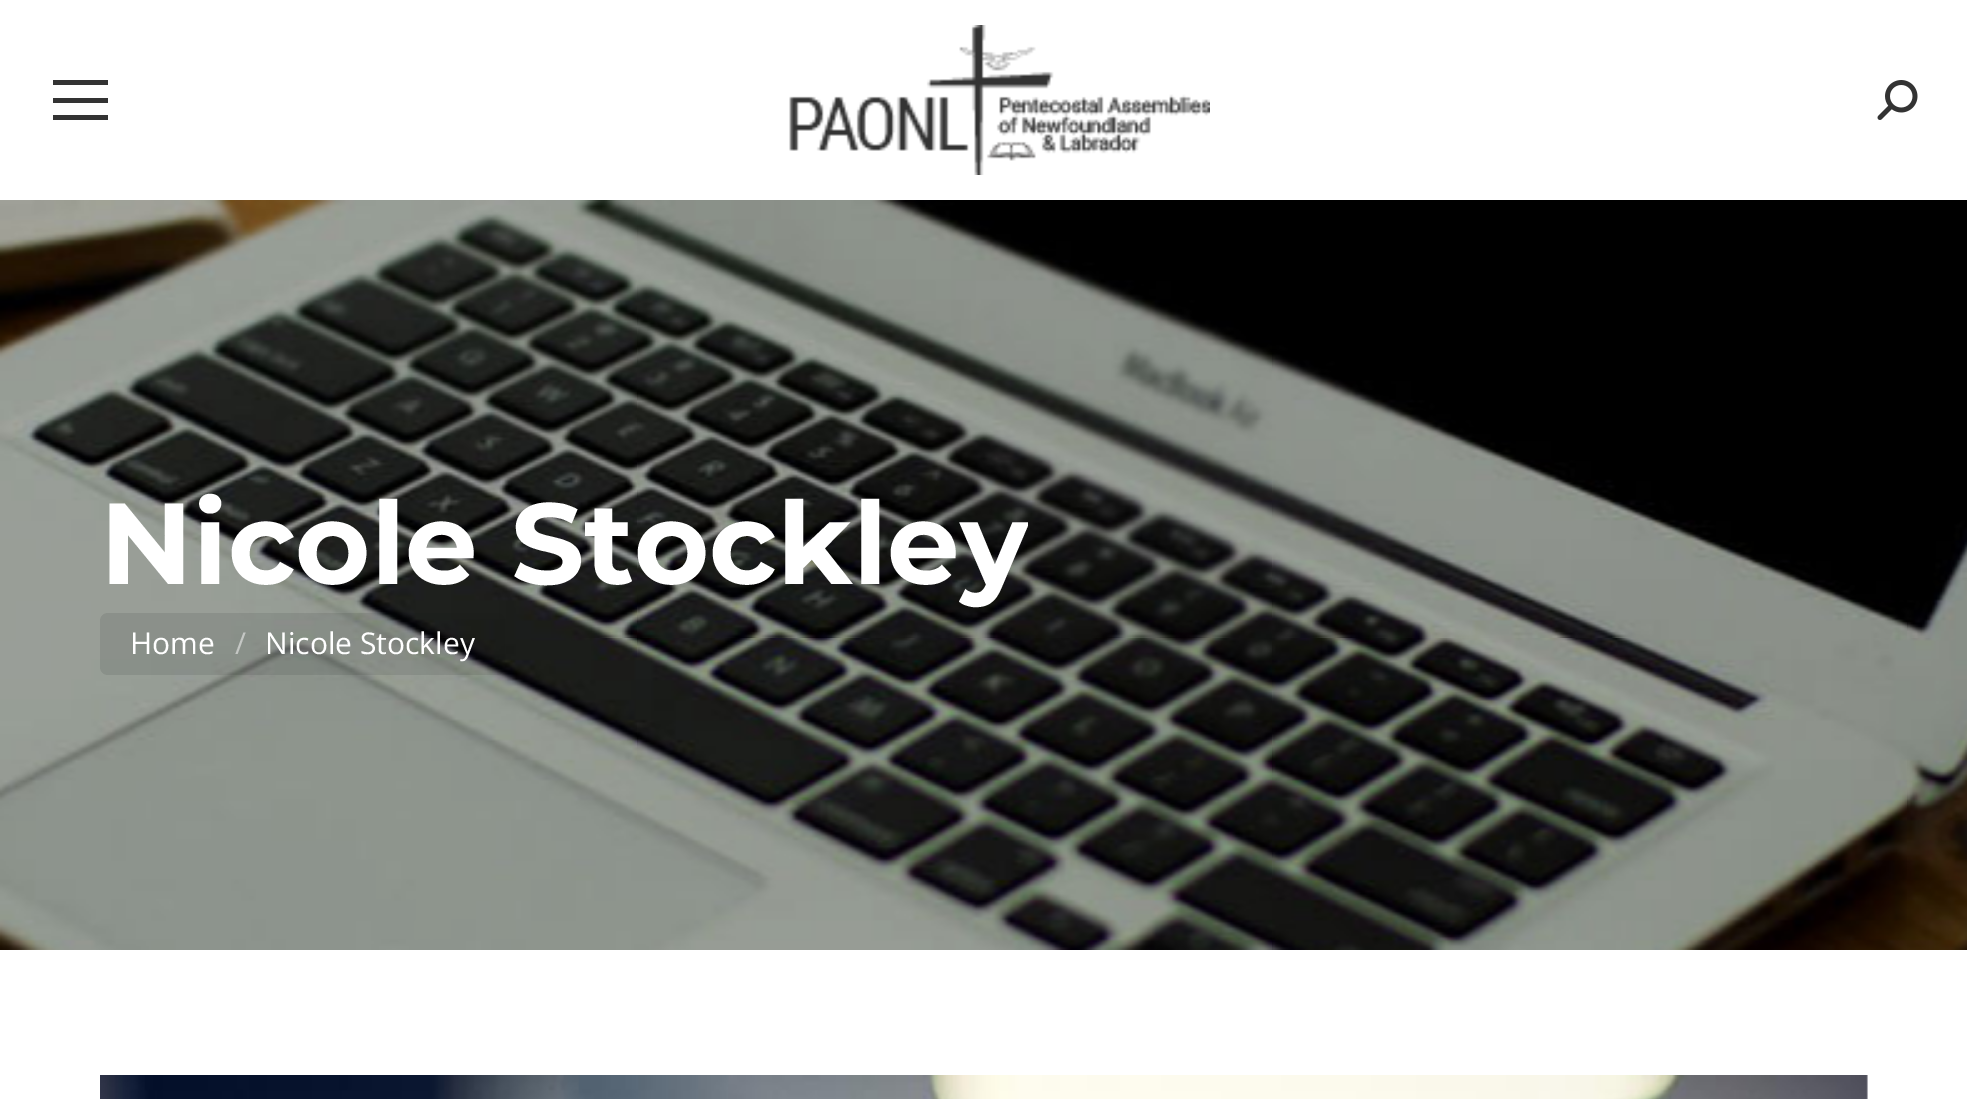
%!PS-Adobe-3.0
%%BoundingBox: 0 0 1967 1099
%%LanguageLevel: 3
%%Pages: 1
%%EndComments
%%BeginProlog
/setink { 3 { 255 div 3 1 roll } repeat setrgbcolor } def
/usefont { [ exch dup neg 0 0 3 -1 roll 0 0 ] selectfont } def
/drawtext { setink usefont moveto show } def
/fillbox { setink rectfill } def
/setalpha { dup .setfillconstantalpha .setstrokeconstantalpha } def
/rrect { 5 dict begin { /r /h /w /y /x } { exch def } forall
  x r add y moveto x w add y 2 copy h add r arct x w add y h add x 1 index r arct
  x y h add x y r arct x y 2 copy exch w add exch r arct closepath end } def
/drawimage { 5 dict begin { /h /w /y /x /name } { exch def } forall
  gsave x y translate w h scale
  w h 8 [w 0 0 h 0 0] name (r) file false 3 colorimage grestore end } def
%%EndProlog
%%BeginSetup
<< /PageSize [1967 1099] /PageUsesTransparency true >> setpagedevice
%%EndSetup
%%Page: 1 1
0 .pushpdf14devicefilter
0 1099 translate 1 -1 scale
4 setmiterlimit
0 0 1967 1099 255 255 255 fillbox
53 80 55 5 51 51 51 fillbox
53 98 55 5 51 51 51 fillbox
53 115 55 5 51 51 51 fillbox
(assets/img1.rgb) 789 25 421 150 drawimage
(assets/img2.rgb) 1877 80 41 40 drawimage
(assets/img3.rgb) 0 200 1967 750 drawimage
gsave
100 478 928 135 rectclip
(Nicole Stockley) 100 584 /Montserrat-Bold 115 255 255 255 drawtext
grestore
0.1 setalpha
15 18 19 setink
100 613 405 62 8 rrect fill
1 setalpha
(Home) 130 654 /OpenSans-Regular 30 255 255 255 drawtext
(/) 235 654 /OpenSans-Regular 30 196 199 196 drawtext
(Nicole Stockley) 265 654 /OpenSans-Regular 30 255 255 255 drawtext
(assets/img4.rgb) 100 1075 1768 24 drawimage
.poppdf14devicefilter showpage
%%EOF
